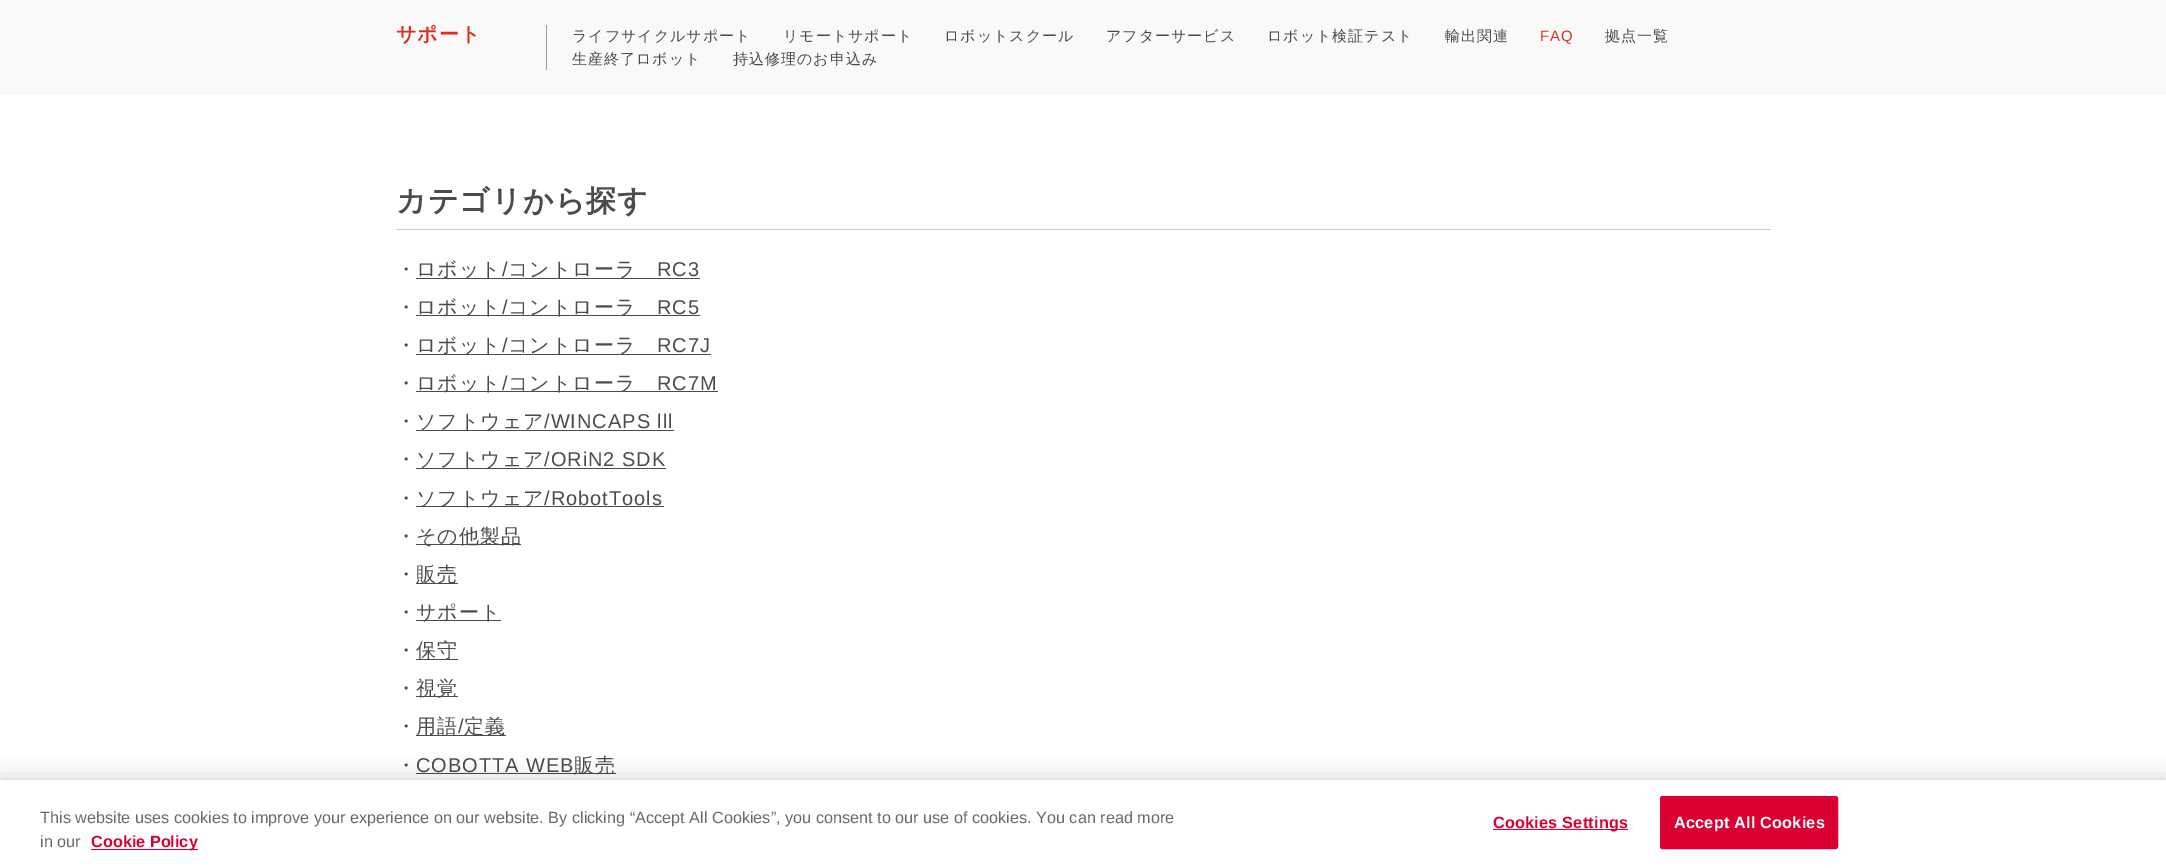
%!PS-Adobe-3.0
%%BoundingBox: 0 0 2166 868
%%LanguageLevel: 3
%%Pages: 1
%%EndComments
%%BeginProlog
/setink { 3 { 255 div 3 1 roll } repeat setrgbcolor } def
/usefont { [ exch dup neg 0 0 3 -1 roll 0 0 ] selectfont } def
/drawtext { setink usefont moveto show } def
/fillbox { setink rectfill } def
/setalpha { dup .setfillconstantalpha .setstrokeconstantalpha } def
/rrect { 5 dict begin { /r /h /w /y /x } { exch def } forall
  x r add y moveto x w add y 2 copy h add r arct x w add y h add x 1 index r arct
  x y h add x y r arct x y 2 copy exch w add exch r arct closepath end } def
/softshadow { 12 dict begin { /a /b /q /h /w /y /x } { exch def } forall gsave /was 0 def
  9 -2 -9 { dup b mul 4 div /e exch def 1 sub .425 mul 2.718 exch exp 1 add a .99 .min exch div /now exch def
    1 1 now sub 1 was sub div sub setalpha /was now def
    w h .min e 2 mul add 0 gt { x e sub y e sub w e 2 mul add h e 2 mul add
      q e add b .6 mul add w h .min 2 div e add .min 0 .max rrect fill } if } for grestore end } def
%%EndProlog
%%BeginSetup
<< /PageSize [2166 868] /PageUsesTransparency true >> setpagedevice
%%EndSetup
%%Page: 1 1
0 .pushpdf14devicefilter
0 868 translate 1 -1 scale
4 setmiterlimit
0 0 2166 868 255 255 255 fillbox
0 0 2166 95 249 249 249 fillbox
/WenQuanYiZenHei-Bold 20 usefont
221 46 30 setink
396 41 moveto 1 0 (サポート) ashow
546 25 1 45 158 158 158 fillbox
/WenQuanYiZenHei-Medium 15 usefont
75 75 75 setink
572 41 moveto 1 0 (ライフサイクルサポート) ashow
783 41 moveto 1 0 (リモートサポート) ashow
944 41 moveto 1 0 (ロボットスクール) ashow
1106 41 moveto 1 0 (アフターサービス) ashow
1267 41 moveto 1 0 (ロボット検証テスト) ashow
1445 41 moveto 1 0 (輸出関連) ashow
/LiberationSans-Regular 15 usefont
221 46 30 setink
1540 41 moveto 1 0 (FAQ) ashow
/WenQuanYiZenHei-Medium 15 usefont
75 75 75 setink
1605 41 moveto 1 0 (拠点一覧) ashow
572 64 moveto 1 0 (生産終了ロボット) ashow
733 64 moveto 1 0 (持込修理のお申込み) ashow
396 229 1375 1 202 202 202 fillbox
/WenQuanYiZenHei-Bold 30 usefont
75 75 75 setink
396 211 moveto 1 0 (カテゴリから探す) ashow
/WenQuanYiZenHei-Medium 20 usefont
396 276 moveto 1 0 (・) ashow
416 278 284 1 75 75 75 fillbox
416 276 moveto 1 0 (ロボット) ashow
/LiberationSans-Regular 20 usefont
502 276 moveto 1 0 (/) ashow
/WenQuanYiZenHei-Medium 20 usefont
508 276 moveto 1 0 (コントローラ) ashow
/LiberationSans-Regular 20 usefont
657 276 moveto 1 0 (RC3) ashow
/WenQuanYiZenHei-Medium 20 usefont
396 314 moveto 1 0 (・) ashow
416 315 284 1 75 75 75 fillbox
416 314 moveto 1 0 (ロボット) ashow
/LiberationSans-Regular 20 usefont
502 314 moveto 1 0 (/) ashow
/WenQuanYiZenHei-Medium 20 usefont
508 314 moveto 1 0 (コントローラ) ashow
/LiberationSans-Regular 20 usefont
657 314 moveto 1 0 (RC5) ashow
/WenQuanYiZenHei-Medium 20 usefont
396 352 moveto 1 0 (・) ashow
416 354 295 1 75 75 75 fillbox
416 352 moveto 1 0 (ロボット) ashow
/LiberationSans-Regular 20 usefont
502 352 moveto 1 0 (/) ashow
/WenQuanYiZenHei-Medium 20 usefont
508 352 moveto 1 0 (コントローラ) ashow
/LiberationSans-Regular 20 usefont
657 352 moveto 1 0 (RC7J) ashow
/WenQuanYiZenHei-Medium 20 usefont
396 390 moveto 1 0 (・) ashow
416 391 302 1 75 75 75 fillbox
416 390 moveto 1 0 (ロボット) ashow
/LiberationSans-Regular 20 usefont
502 390 moveto 1 0 (/) ashow
/WenQuanYiZenHei-Medium 20 usefont
508 390 moveto 1 0 (コントローラ) ashow
/LiberationSans-Regular 20 usefont
657 390 moveto 1 0 (RC7M) ashow
/WenQuanYiZenHei-Medium 20 usefont
396 428 moveto 1 0 (・) ashow
416 430 258 1 75 75 75 fillbox
416 428 moveto 1 0 (ソフトウェア) ashow
/LiberationSans-Regular 20 usefont
544 428 moveto 1 0 (/WINCAPS lll) ashow
/WenQuanYiZenHei-Medium 20 usefont
396 466 moveto 1 0 (・) ashow
416 468 250 1 75 75 75 fillbox
416 466 moveto 1 0 (ソフトウェア) ashow
/LiberationSans-Regular 20 usefont
544 466 moveto 1 0 (/ORiN2 SDK) ashow
/WenQuanYiZenHei-Medium 20 usefont
396 505 moveto 1 0 (・) ashow
416 506 248 1 75 75 75 fillbox
416 505 moveto 1 0 (ソフトウェア) ashow
/LiberationSans-Regular 20 usefont
544 505 moveto 1 0 (/RobotTools) ashow
/WenQuanYiZenHei-Medium 20 usefont
396 543 moveto 1 0 (・) ashow
416 544 105 1 75 75 75 fillbox
416 543 moveto 1 0 (その他製品) ashow
396 581 moveto 1 0 (・) ashow
416 583 42 1 75 75 75 fillbox
416 581 moveto 1 0 (販売) ashow
396 619 moveto 1 0 (・) ashow
416 620 85 1 75 75 75 fillbox
416 619 moveto 1 0 (サポート) ashow
396 657 moveto 1 0 (・) ashow
416 659 42 1 75 75 75 fillbox
416 657 moveto 1 0 (保守) ashow
396 695 moveto 1 0 (・) ashow
416 696 42 1 75 75 75 fillbox
416 695 moveto 1 0 (視覚) ashow
396 733 moveto 1 0 (・) ashow
416 735 90 1 75 75 75 fillbox
416 733 moveto 1 0 (用語) ashow
/LiberationSans-Regular 20 usefont
458 733 moveto 1 0 (/) ashow
/WenQuanYiZenHei-Medium 20 usefont
464 733 moveto 1 0 (定義) ashow
396 772 moveto 1 0 (・) ashow
/LiberationSans-Regular 20 usefont
416 772 moveto 1 0 (COBOTTA WEB) ashow
416 773 200 1 75 75 75 fillbox
/WenQuanYiZenHei-Medium 20 usefont
574 772 moveto 1 0 (販売) ashow
0 0 0 setink
0 780 2166 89 0 11 0.2 softshadow
0 780 2166 88 255 255 255 fillbox
(This website uses cookies to improve your experience on our website. By clicking “Accept All Cookies”, you consent to our use of cookies. You can read more) 40 823 /LiberationSans-Regular 16.25 105 105 105 drawtext
(in our) 40 847 /LiberationSans-Regular 16.25 105 105 105 drawtext
91 849 107 1 220 0 50 fillbox
(Cookie Policy) 91 847 /LiberationSans-Bold 16.25 220 0 50 drawtext
1493 829 135 1 220 0 50 fillbox
1493 828 moveto 0.2 0 (Cookies Settings) ashow
1660.5 796.5 177 52 2 rrect gsave fill grestore
stroke
255 255 255 setink
1674 828 moveto 0.2 0 (Accept All Cookies) ashow
.poppdf14devicefilter showpage
%%EOF
